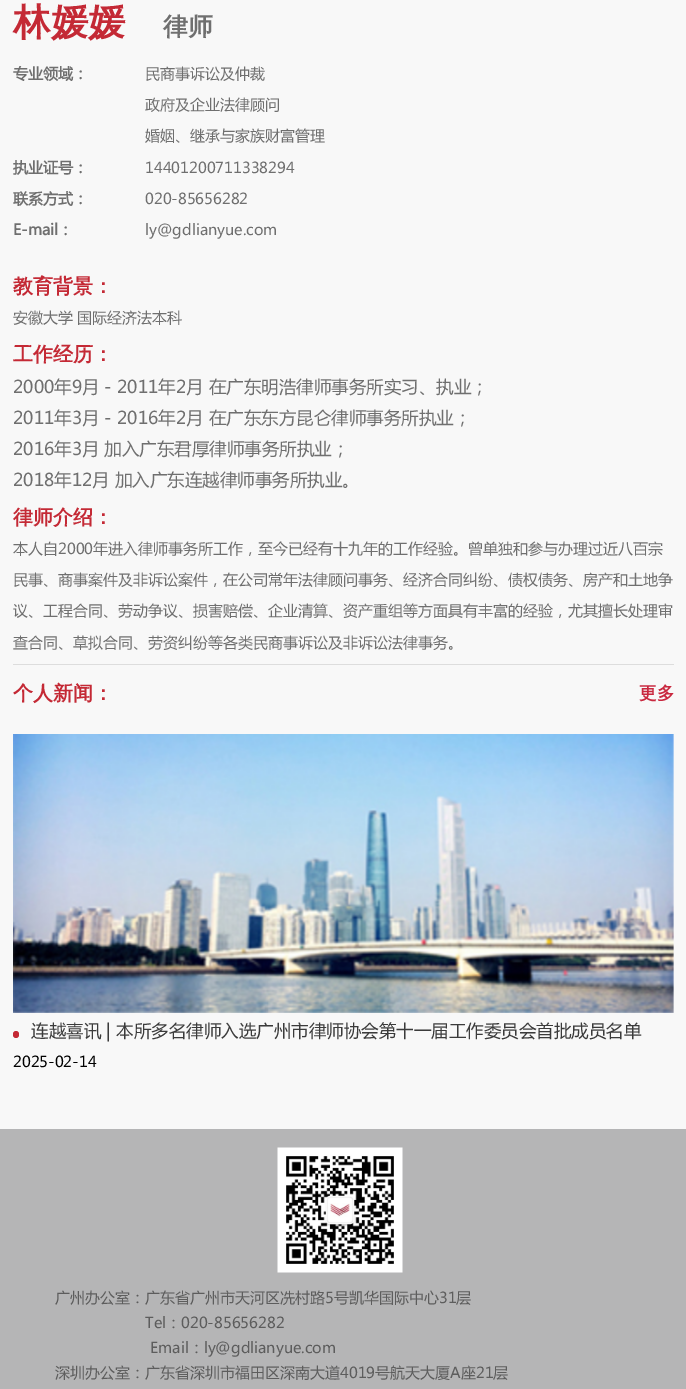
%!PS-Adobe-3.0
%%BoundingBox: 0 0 686 1389
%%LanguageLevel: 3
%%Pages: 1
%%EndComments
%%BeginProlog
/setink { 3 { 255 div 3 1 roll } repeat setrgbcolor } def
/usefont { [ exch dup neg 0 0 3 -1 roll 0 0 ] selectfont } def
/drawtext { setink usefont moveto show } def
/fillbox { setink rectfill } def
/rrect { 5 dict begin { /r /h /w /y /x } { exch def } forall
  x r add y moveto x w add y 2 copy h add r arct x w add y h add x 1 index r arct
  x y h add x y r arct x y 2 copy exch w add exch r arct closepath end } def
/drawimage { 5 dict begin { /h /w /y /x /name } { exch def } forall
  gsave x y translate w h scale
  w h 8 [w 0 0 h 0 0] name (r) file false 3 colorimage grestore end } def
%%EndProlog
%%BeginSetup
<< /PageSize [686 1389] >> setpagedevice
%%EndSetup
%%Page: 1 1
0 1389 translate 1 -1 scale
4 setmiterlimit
0 0 686 1389 248 248 248 fillbox
(林媛媛) 13 35 /WenQuanYiZenHei-Bold 37.5 196 41 53 drawtext
(律师) 163 35 /WenQuanYiZenHei-Bold 25 111 111 111 drawtext
(专业领域：) 13 79 /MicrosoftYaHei-Bold 15 111 111 111 drawtext
(民商事诉讼及仲裁) 145 79 /MicrosoftYaHei-Regular 15 111 111 111 drawtext
(政府及企业法律顾问) 145 110 /MicrosoftYaHei-Regular 15 111 111 111 drawtext
(婚姻、继承与家族财富管理) 145 141 /MicrosoftYaHei-Regular 15 111 111 111 drawtext
(执业证号：) 13 173 /MicrosoftYaHei-Bold 15 111 111 111 drawtext
(14401200711338294) 145 173 /MicrosoftYaHei-Regular 15 111 111 111 drawtext
(联系方式：) 13 204 /MicrosoftYaHei-Bold 15 111 111 111 drawtext
(020-85656282) 145 204 /MicrosoftYaHei-Regular 15 111 111 111 drawtext
(E-mail：) 13 235 /MicrosoftYaHei-Bold 15 111 111 111 drawtext
(ly@gdlianyue.com) 145 235 /MicrosoftYaHei-Regular 15 111 111 111 drawtext
(教育背景：) 13 293 /WenQuanYiZenHei-Bold 20 196 41 53 drawtext
(安徽大学 国际经济法本科) 13 323 /MicrosoftYaHei-Regular 15 111 111 111 drawtext
(工作经历：) 13 361 /WenQuanYiZenHei-Bold 20 196 41 53 drawtext
(2000年9月 - 2011年2月 在广东明浩律师事务所实习、执业；) 13 393 /MicrosoftYaHei-Regular 17.5 111 111 111 drawtext
(2011年3月 - 2016年2月 在广东东方昆仑律师事务所执业；) 13 424 /MicrosoftYaHei-Regular 17.5 111 111 111 drawtext
(2016年3月 加入广东君厚律师事务所执业；) 13 455 /MicrosoftYaHei-Regular 17.5 111 111 111 drawtext
(2018年12月 加入广东连越律师事务所执业。) 13 486 /MicrosoftYaHei-Regular 17.5 111 111 111 drawtext
(律师介绍：) 13 524 /WenQuanYiZenHei-Bold 20 196 41 53 drawtext
(本人自2000年进入律师事务所工作，至今已经有十九年的工作经验。曾单独和参与办理过近八百宗) 13 554 /MicrosoftYaHei-Regular 15 111 111 111 drawtext
(民事、商事案件及非诉讼案件，在公司常年法律顾问事务、经济合同纠纷、债权债务、房产和土地争) 13 585 /MicrosoftYaHei-Regular 15 111 111 111 drawtext
(议、工程合同、劳动争议、损害赔偿、企业清算、资产重组等方面具有丰富的经验，尤其擅长处理审) 13 616 /MicrosoftYaHei-Regular 15 111 111 111 drawtext
(查合同、草拟合同、劳资纠纷等各类民商事诉讼及非诉讼法律事务。) 13 648 /MicrosoftYaHei-Regular 15 111 111 111 drawtext
13 664 661 1 221 221 221 fillbox
(个人新闻：) 13 700 /WenQuanYiZenHei-Bold 20 196 41 53 drawtext
(更多) 639 699 /WenQuanYiZenHei-Bold 17.5 201 40 63 drawtext
(assets/img1.rgb) 13 734 661 279 drawimage
196 41 53 setink
13 1031 6 7 3 rrect fill
(连越喜讯 | 本所多名律师入选广州市律师协会第十一届工作委员会首批成员名单) 31 1037 /MicrosoftYaHei-Regular 17.5 59 59 59 drawtext
(2025-02-14) 13 1067 /MicrosoftYaHei-Regular 15 0 0 0 drawtext
0 1129 686 260 181 181 182 fillbox
(assets/img2.rgb) 277 1147 126 126 drawimage
(广州办公室：广东省广州市天河区冼村路5号凯华国际中心31层) 55 1303 /MicrosoftYaHei-Regular 15 93 93 93 drawtext
(Tel：020-85656282) 145 1328 /MicrosoftYaHei-Regular 15 93 93 93 drawtext
(Email：ly@gdlianyue.com) 150 1353 /MicrosoftYaHei-Regular 15 93 93 93 drawtext
(深圳办公室：广东省深圳市福田区深南大道4019号航天大厦A座21层) 55 1378 /MicrosoftYaHei-Regular 15 93 93 93 drawtext
showpage
%%EOF
